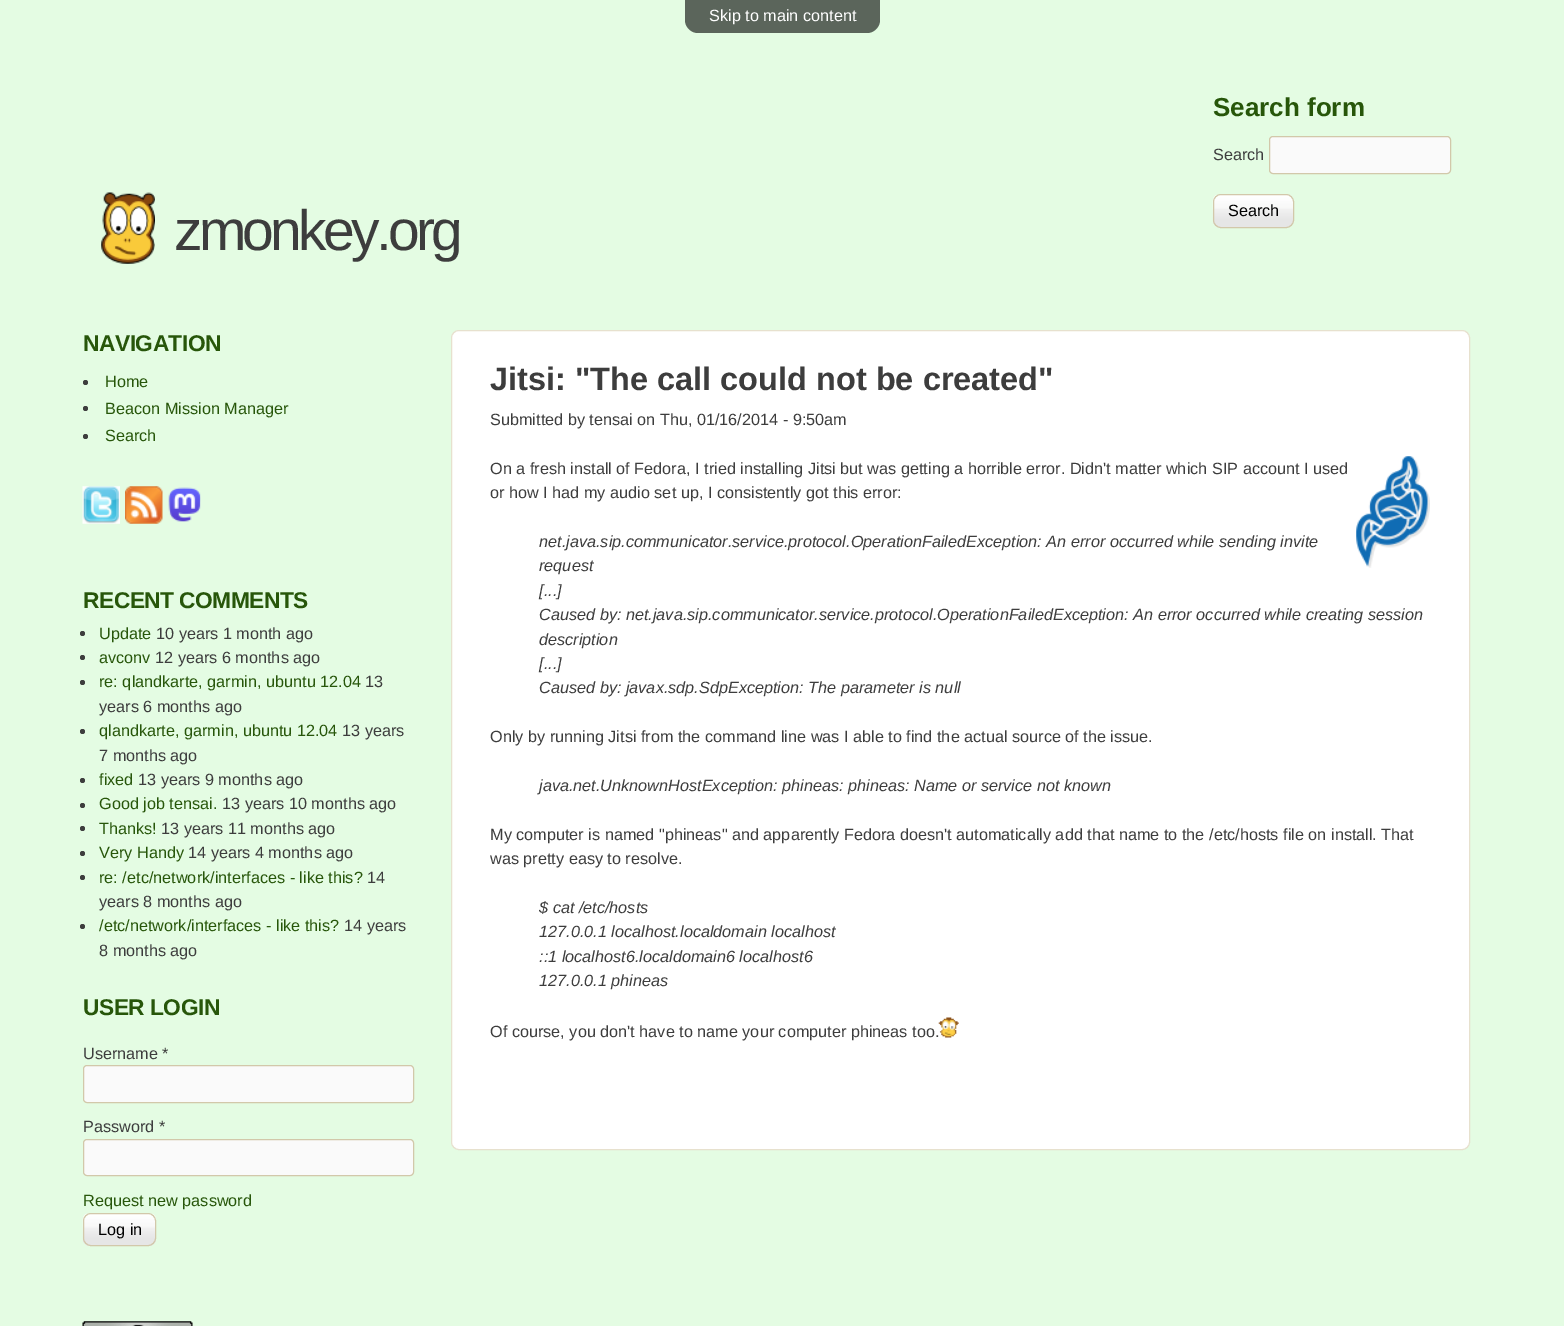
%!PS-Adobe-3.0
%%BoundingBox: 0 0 1564 1326
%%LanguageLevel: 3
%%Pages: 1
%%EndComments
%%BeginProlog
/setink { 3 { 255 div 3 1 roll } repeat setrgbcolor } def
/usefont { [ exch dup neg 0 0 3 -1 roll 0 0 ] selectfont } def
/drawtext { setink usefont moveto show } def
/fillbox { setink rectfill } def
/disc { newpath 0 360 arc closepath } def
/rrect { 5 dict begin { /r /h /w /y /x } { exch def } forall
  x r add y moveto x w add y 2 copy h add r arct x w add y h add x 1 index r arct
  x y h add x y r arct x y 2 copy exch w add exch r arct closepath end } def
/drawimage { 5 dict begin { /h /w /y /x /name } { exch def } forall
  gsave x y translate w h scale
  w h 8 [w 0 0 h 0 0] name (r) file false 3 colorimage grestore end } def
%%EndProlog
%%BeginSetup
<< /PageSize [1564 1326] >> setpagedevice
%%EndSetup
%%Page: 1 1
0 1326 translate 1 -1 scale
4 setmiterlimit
0 0 1564 1326 228 252 227 fillbox
91 101 91 setink
685 0 moveto 880 0 lineto 880 20 lineto 880 27 874 33 867 33 curveto 698 33 lineto 691 33 685 27 685 20 curveto closepath fill
(Skip to main content) 709 21 /LiberationSans-Regular 16.25 255 255 255 drawtext
(Search form) 1213 116 /LiberationSans-Bold 26 39 86 10 drawtext
(Search) 1213 160 /LiberationSans-Regular 16.25 61 61 61 drawtext
250 250 250 setink
1269.5 136.5 181 37 3.5 rrect gsave fill grestore
210 200 170 setink
stroke
(assets/img1.rgb) 1212 195 82 33 drawimage
1213.5 194.5 80 33 7.5 rrect stroke
(Search) 1228 216 /LiberationSans-Regular 16.25 0 0 0 drawtext
(assets/img2.rgb) 101 192 54 72 drawimage
/LiberationSans-Regular 57 usefont
61 61 61 setink
174 250 moveto -3.75 0 (zmonkey.org) ashow
/LiberationSans-Bold 22.75 usefont
39 86 10 setink
83 351 moveto -0.5 0 (NAVIGATION) ashow
61 61 61 setink
85.5 382.5 2.5 disc fill
(Home) 105 387 /LiberationSans-Regular 16.25 39 86 10 drawtext
61 61 61 setink
85.5 408.5 2.5 disc fill
(Beacon Mission Manager) 105 414 /LiberationSans-Regular 16.25 39 86 10 drawtext
61 61 61 setink
85.5 436.5 2.5 disc fill
(Search) 105 441 /LiberationSans-Regular 16.25 39 86 10 drawtext
(assets/img3.rgb) 82 486 38 38 drawimage
(assets/img4.rgb) 125 486 38 38 drawimage
(assets/img5.rgb) 168 487 33 35 drawimage
/LiberationSans-Bold 22.75 usefont
83 608 moveto -0.5 0 (RECENT COMMENTS) ashow
61 61 61 setink
82.5 633.5 2.5 disc fill
(Update) 99 639 /LiberationSans-Regular 16.25 39 86 10 drawtext
(10 years 1 month ago) 156 639 /LiberationSans-Regular 16.25 61 61 61 drawtext
82.5 657.5 2.5 disc fill
(avconv) 99 663 /LiberationSans-Regular 16.25 39 86 10 drawtext
(12 years 6 months ago) 155 663 /LiberationSans-Regular 16.25 61 61 61 drawtext
82.5 682.5 2.5 disc fill
(re: qlandkarte, garmin, ubuntu 12.04) 99 687 /LiberationSans-Regular 16.25 39 86 10 drawtext
(13) 365 687 /LiberationSans-Regular 16.25 61 61 61 drawtext
(years 6 months ago) 99 712 /LiberationSans-Regular 16.25 61 61 61 drawtext
82.5 731.5 2.5 disc fill
(qlandkarte, garmin, ubuntu 12.04) 99 736 /LiberationSans-Regular 16.25 39 86 10 drawtext
(13 years) 342 736 /LiberationSans-Regular 16.25 61 61 61 drawtext
(7 months ago) 99 761 /LiberationSans-Regular 16.25 61 61 61 drawtext
82.5 780.5 2.5 disc fill
(fixed) 99 785 /LiberationSans-Regular 16.25 39 86 10 drawtext
(13 years 9 months ago) 138 785 /LiberationSans-Regular 16.25 61 61 61 drawtext
82.5 805.5 2.5 disc fill
(Good job tensai.) 99 809 /LiberationSans-Regular 16.25 39 86 10 drawtext
(13 years 10 months ago) 222 809 /LiberationSans-Regular 16.25 61 61 61 drawtext
82.5 828.5 2.5 disc fill
(Thanks!) 99 834 /LiberationSans-Regular 16.25 39 86 10 drawtext
(13 years 11 months ago) 161 834 /LiberationSans-Regular 16.25 61 61 61 drawtext
82.5 853.5 2.5 disc fill
(Very Handy) 99 858 /LiberationSans-Regular 16.25 39 86 10 drawtext
(14 years 4 months ago) 188 858 /LiberationSans-Regular 16.25 61 61 61 drawtext
82.5 877.5 2.5 disc fill
(re: /etc/network/interfaces - like this?) 99 883 /LiberationSans-Regular 16.25 39 86 10 drawtext
(14) 367 883 /LiberationSans-Regular 16.25 61 61 61 drawtext
(years 8 months ago) 99 907 /LiberationSans-Regular 16.25 61 61 61 drawtext
82.5 926.5 2.5 disc fill
(/etc/network/interfaces - like this?) 99 931 /LiberationSans-Regular 16.25 39 86 10 drawtext
(14 years) 344 931 /LiberationSans-Regular 16.25 61 61 61 drawtext
(8 months ago) 99 956 /LiberationSans-Regular 16.25 61 61 61 drawtext
/LiberationSans-Bold 22.75 usefont
39 86 10 setink
83 1015 moveto -0.5 0 (USER LOGIN) ashow
(Username *) 83 1059 /LiberationSans-Regular 16.25 61 61 61 drawtext
250 250 250 setink
83.5 1065.5 330 37 3.5 rrect gsave fill grestore
210 200 170 setink
stroke
(Password *) 83 1132 /LiberationSans-Regular 16.25 61 61 61 drawtext
250 250 250 setink
83.5 1139.5 330 36 3.5 rrect gsave fill grestore
210 200 170 setink
stroke
(Request new password) 83 1206 /LiberationSans-Regular 16.25 39 86 10 drawtext
(assets/img6.rgb) 82 1213 74 33 drawimage
210 200 170 setink
83.5 1213.5 72 32 7.5 rrect stroke
(Log in) 98 1235 /LiberationSans-Regular 16.25 0 0 0 drawtext
255 255 255 setink
451.5 330.5 1018 819 7.5 rrect gsave fill grestore
231 225 206 setink
stroke
(Jitsi: "The call could not be created") 490 390 /LiberationSans-Bold 32.5 61 61 61 drawtext
(Submitted by tensai on Thu, 01/16/2014 - 9:50am) 490 425 /LiberationSans-Regular 16.25 61 61 61 drawtext
(On a fresh install of Fedora, I tried installing Jitsi but was getting a horrible error. Didn't matter which SIP account I used) 490 474 /LiberationSans-Regular 16.25 61 61 61 drawtext
(assets/img7.rgb) 1356 456 74 112 drawimage
(or how I had my audio set up, I consistently got this error:) 490 498 /LiberationSans-Regular 16.25 61 61 61 drawtext
(net.java.sip.communicator.service.protocol.OperationFailedException: An error occurred while sending invite) 539 547 /LiberationSans-Italic 16.25 61 61 61 drawtext
(request) 539 571 /LiberationSans-Italic 16.25 61 61 61 drawtext
([...]) 539 596 /LiberationSans-Italic 16.25 61 61 61 drawtext
(Caused by: net.java.sip.communicator.service.protocol.OperationFailedException: An error occurred while creating session) 539 620 /LiberationSans-Italic 16.25 61 61 61 drawtext
(description) 539 645 /LiberationSans-Italic 16.25 61 61 61 drawtext
([...]) 539 669 /LiberationSans-Italic 16.25 61 61 61 drawtext
(Caused by: javax.sdp.SdpException: The parameter is null) 539 693 /LiberationSans-Italic 16.25 61 61 61 drawtext
(Only by running Jitsi from the command line was I able to find the actual source of the issue.) 490 742 /LiberationSans-Regular 16.25 61 61 61 drawtext
(java.net.UnknownHostException: phineas: phineas: Name or service not known) 539 791 /LiberationSans-Italic 16.25 61 61 61 drawtext
(My computer is named "phineas" and apparently Fedora doesn't automatically add that name to the /etc/hosts file on install. That) 490 840 /LiberationSans-Regular 16.25 61 61 61 drawtext
(was pretty easy to resolve.) 490 864 /LiberationSans-Regular 16.25 61 61 61 drawtext
($ cat /etc/hosts) 539 913 /LiberationSans-Italic 16.25 61 61 61 drawtext
(127.0.0.1 localhost.localdomain localhost) 539 937 /LiberationSans-Italic 16.25 61 61 61 drawtext
(::1 localhost6.localdomain6 localhost6) 539 962 /LiberationSans-Italic 16.25 61 61 61 drawtext
(127.0.0.1 phineas) 539 986 /LiberationSans-Italic 16.25 61 61 61 drawtext
(Of course, you don't have to name your computer phineas too.) 490 1037 /LiberationSans-Regular 16.25 61 61 61 drawtext
(assets/img8.rgb) 938 1017 21 21 drawimage
(assets/img9.rgb) 82 1321 111 5 drawimage
showpage
%%EOF
